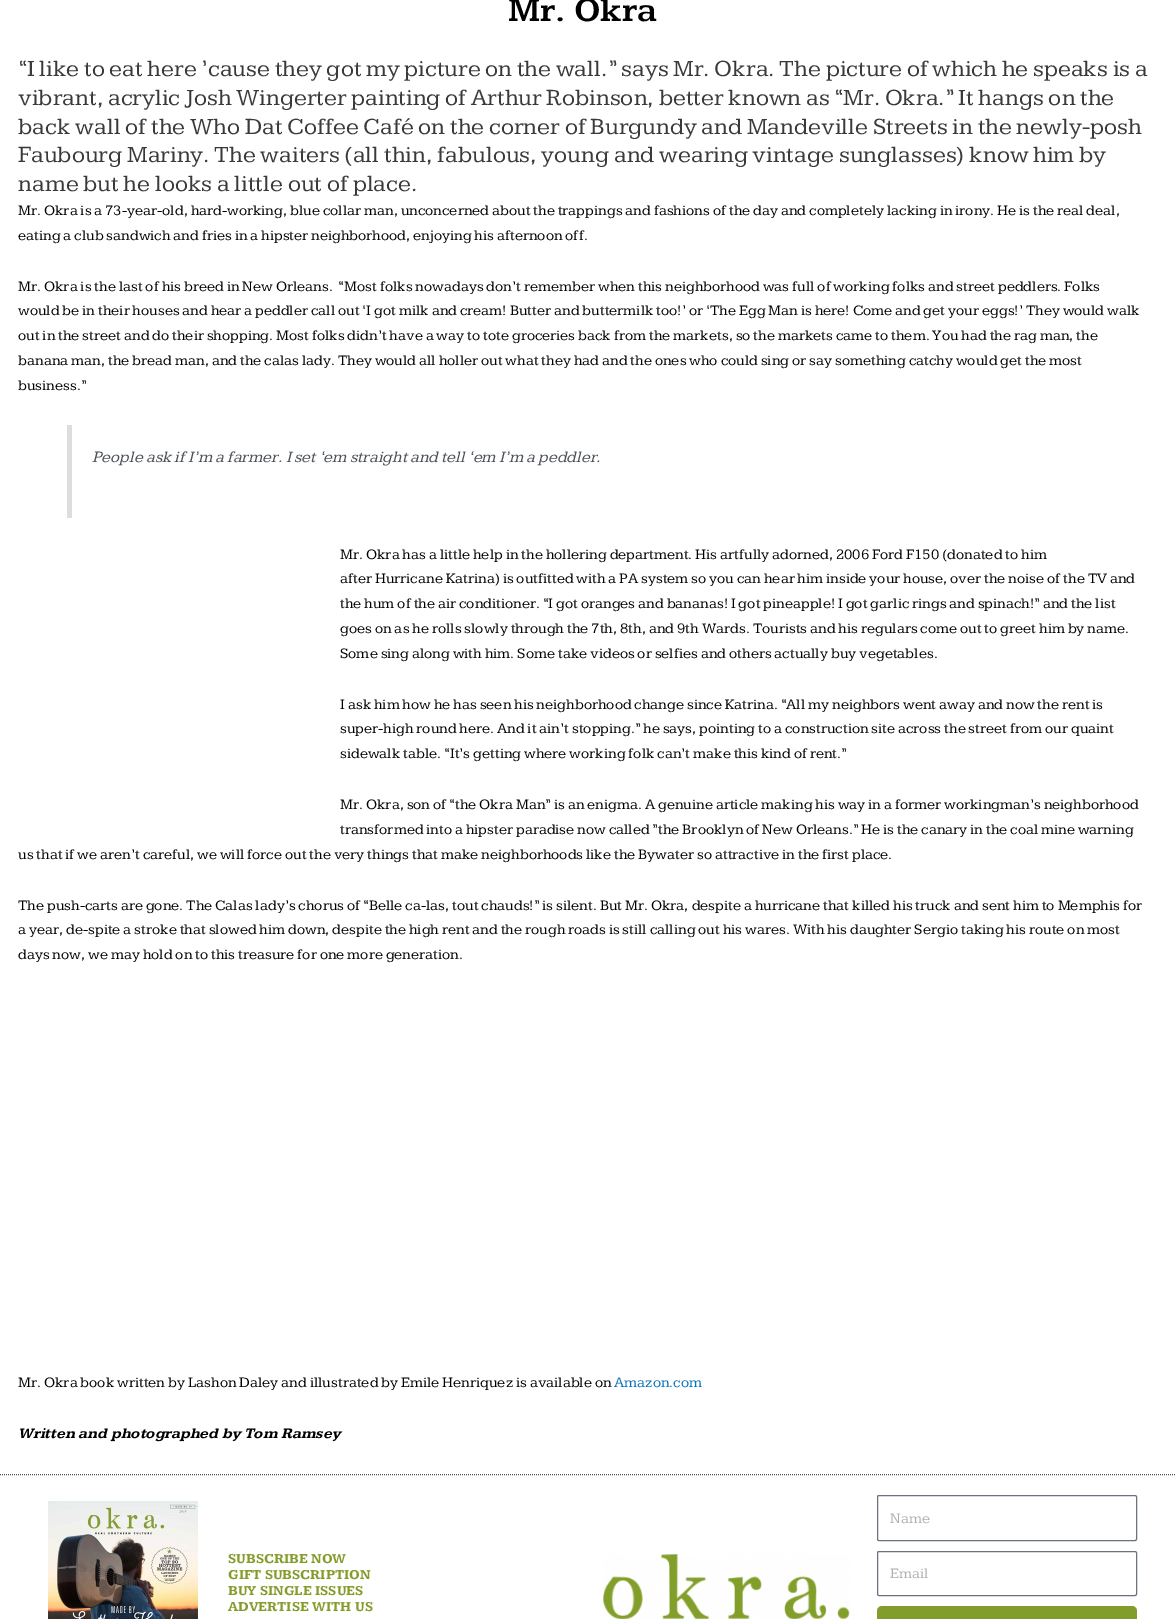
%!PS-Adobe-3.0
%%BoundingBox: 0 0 1175 1619
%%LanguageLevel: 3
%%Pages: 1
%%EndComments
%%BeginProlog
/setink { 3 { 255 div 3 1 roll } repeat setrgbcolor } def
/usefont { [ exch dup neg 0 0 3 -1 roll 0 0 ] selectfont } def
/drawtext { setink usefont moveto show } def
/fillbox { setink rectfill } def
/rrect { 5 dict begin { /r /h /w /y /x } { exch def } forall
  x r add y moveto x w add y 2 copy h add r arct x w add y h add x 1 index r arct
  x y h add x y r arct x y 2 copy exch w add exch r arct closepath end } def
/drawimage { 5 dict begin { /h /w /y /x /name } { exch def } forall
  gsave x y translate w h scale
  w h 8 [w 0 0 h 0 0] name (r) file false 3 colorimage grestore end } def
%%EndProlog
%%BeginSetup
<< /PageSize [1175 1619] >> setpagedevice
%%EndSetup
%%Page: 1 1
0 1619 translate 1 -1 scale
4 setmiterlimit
0 0 1175 1619 255 255 255 fillbox
(Mr. Okra) 508 21 /Kameron-SemiBold 35 0 0 0 drawtext
(“I like to eat here ’cause they got my picture on the wall.” says Mr. Okra. The picture of which he speaks is a) 18 76 /Kameron-Regular 24 58 58 58 drawtext
(vibrant, acrylic Josh Wingerter painting of Arthur Robinson, better known as “Mr. Okra.” It hangs on the) 18 105 /Kameron-Regular 24 58 58 58 drawtext
(back wall of the Who Dat Coffee Café on the corner of Burgundy and Mandeville Streets in the newly-posh) 18 134 /Kameron-Regular 24 58 58 58 drawtext
(Faubourg Mariny. The waiters \(all thin, fabulous, young and wearing vintage sunglasses\) know him by) 18 162 /Kameron-Regular 24 58 58 58 drawtext
(name but he looks a little out of place.) 18 191 /Kameron-Regular 24 58 58 58 drawtext
(Mr. Okra is a 73-year-old, hard-working, blue collar man, unconcerned about the trappings and fashions of the day and completely lacking in irony. He is the real deal,) 18 215 /Kameron-Regular 15 0 0 0 drawtext
(eating a club sandwich and fries in a hipster neighborhood, enjoying his afternoon off.) 18 240 /Kameron-Regular 15 0 0 0 drawtext
(Mr. Okra is the last of his breed in New Orleans.  “Most folks nowadays don’t remember when this neighborhood was full of working folks and street peddlers. Folks) 18 291 /Kameron-Regular 15 0 0 0 drawtext
(would be in their houses and hear a peddler call out ‘I got milk and cream! Butter and buttermilk too!’ or ‘The Egg Man is here! Come and get your eggs!’ They would walk) 18 315 /Kameron-Regular 15 0 0 0 drawtext
(out in the street and do their shopping. Most folks didn’t have a way to tote groceries back from the markets, so the markets came to them. You had the rag man, the) 18 340 /Kameron-Regular 15 0 0 0 drawtext
(banana man, the bread man, and the calas lady. They would all holler out what they had and the ones who could sing or say something catchy would get the most) 18 365 /Kameron-Regular 15 0 0 0 drawtext
(business.”) 18 390 /Kameron-Regular 15 0 0 0 drawtext
67 425 5 93 221 221 221 fillbox
(People ask if I’m a farmer. I set ‘em straight and tell ‘em I’m a peddler.) 92 462 /Kameron-Italic 16.5 75 79 88 drawtext
(Mr. Okra has a little help in the hollering department. His artfully adorned, 2006 Ford F150 \(donated to him) 340 559 /Kameron-Regular 15 0 0 0 drawtext
(after Hurricane Katrina\) is outfitted with a PA system so you can hear him inside your house, over the noise of the TV and) 340 583 /Kameron-Regular 15 0 0 0 drawtext
(the hum of the air conditioner. “I got oranges and bananas! I got pineapple! I got garlic rings and spinach!” and the list) 340 608 /Kameron-Regular 15 0 0 0 drawtext
(goes on as he rolls slowly through the 7th, 8th, and 9th Wards. Tourists and his regulars come out to greet him by name.) 340 633 /Kameron-Regular 15 0 0 0 drawtext
(Some sing along with him. Some take videos or selfies and others actually buy vegetables.) 340 658 /Kameron-Regular 15 0 0 0 drawtext
(I ask him how he has seen his neighborhood change since Katrina. “All my neighbors went away and now the rent is) 340 709 /Kameron-Regular 15 0 0 0 drawtext
(super-high round here. And it ain’t stopping.” he says, pointing to a construction site across the street from our quaint) 340 733 /Kameron-Regular 15 0 0 0 drawtext
(sidewalk table. “It’s getting where working folk can’t make this kind of rent.”) 340 758 /Kameron-Regular 15 0 0 0 drawtext
(Mr. Okra, son of “the Okra Man” is an enigma. A genuine article making his way in a former workingman’s neighborhood) 340 809 /Kameron-Regular 15 0 0 0 drawtext
(transformed into a hipster paradise now called ”the Brooklyn of New Orleans.” He is the canary in the coal mine warning) 340 834 /Kameron-Regular 15 0 0 0 drawtext
(us that if we aren’t careful, we will force out the very things that make neighborhoods like the Bywater so attractive in the first place.) 18 859 /Kameron-Regular 15 0 0 0 drawtext
(The push-carts are gone. The Calas lady’s chorus of “Belle ca-las, tout chauds!” is silent. But Mr. Okra, despite a hurricane that killed his truck and sent him to Memphis for) 18 910 /Kameron-Regular 15 0 0 0 drawtext
(a year, de-spite a stroke that slowed him down, despite the high rent and the rough roads is still calling out his wares. With his daughter Sergio taking his route on most) 18 934 /Kameron-Regular 15 0 0 0 drawtext
(days now, we may hold on to this treasure for one more generation.) 18 959 /Kameron-Regular 15 0 0 0 drawtext
(Mr. Okra book written by Lashon Daley and illustrated by Emile Henriquez is available on) 18 1387 /Kameron-Regular 15 0 0 0 drawtext
(Amazon.com) 614 1387 /Kameron-Regular 15 1 112 185 drawtext
(Written and photographed by Tom Ramsey) 18 1438 /Kameron-BoldItalic 15 0 0 0 drawtext
75 79 88 setink
[1 1] 0 setdash
0 1474.5 moveto 1175 1474.5 lineto stroke
(assets/img1.rgb) 48 1501 150 118 drawimage
(SUBSCRIBE NOW) 228 1563 /Kameron-Bold 14 130 157 43 drawtext
(GIFT SUBSCRIPTION) 228 1579 /Kameron-Bold 14 130 157 43 drawtext
(BUY SINGLE ISSUES) 228 1595 /Kameron-Bold 14 130 157 43 drawtext
(ADVERTISE WITH US) 228 1611 /Kameron-Bold 14 130 157 43 drawtext
(assets/img2.rgb) 603 1554 247 65 drawimage
105 114 125 setink
[] 0 setdash
877.5 1495.5 259 45 1.5 rrect stroke
(Name) 890 1523 /Kameron-Regular 15 175 175 175 drawtext
105 114 125 setink
877.5 1551.5 259 44 1.5 rrect stroke
(Email) 890 1578 /Kameron-Regular 15 175 175 175 drawtext
130 157 43 setink
877 1606 260 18 5 rrect fill
showpage
%%EOF
